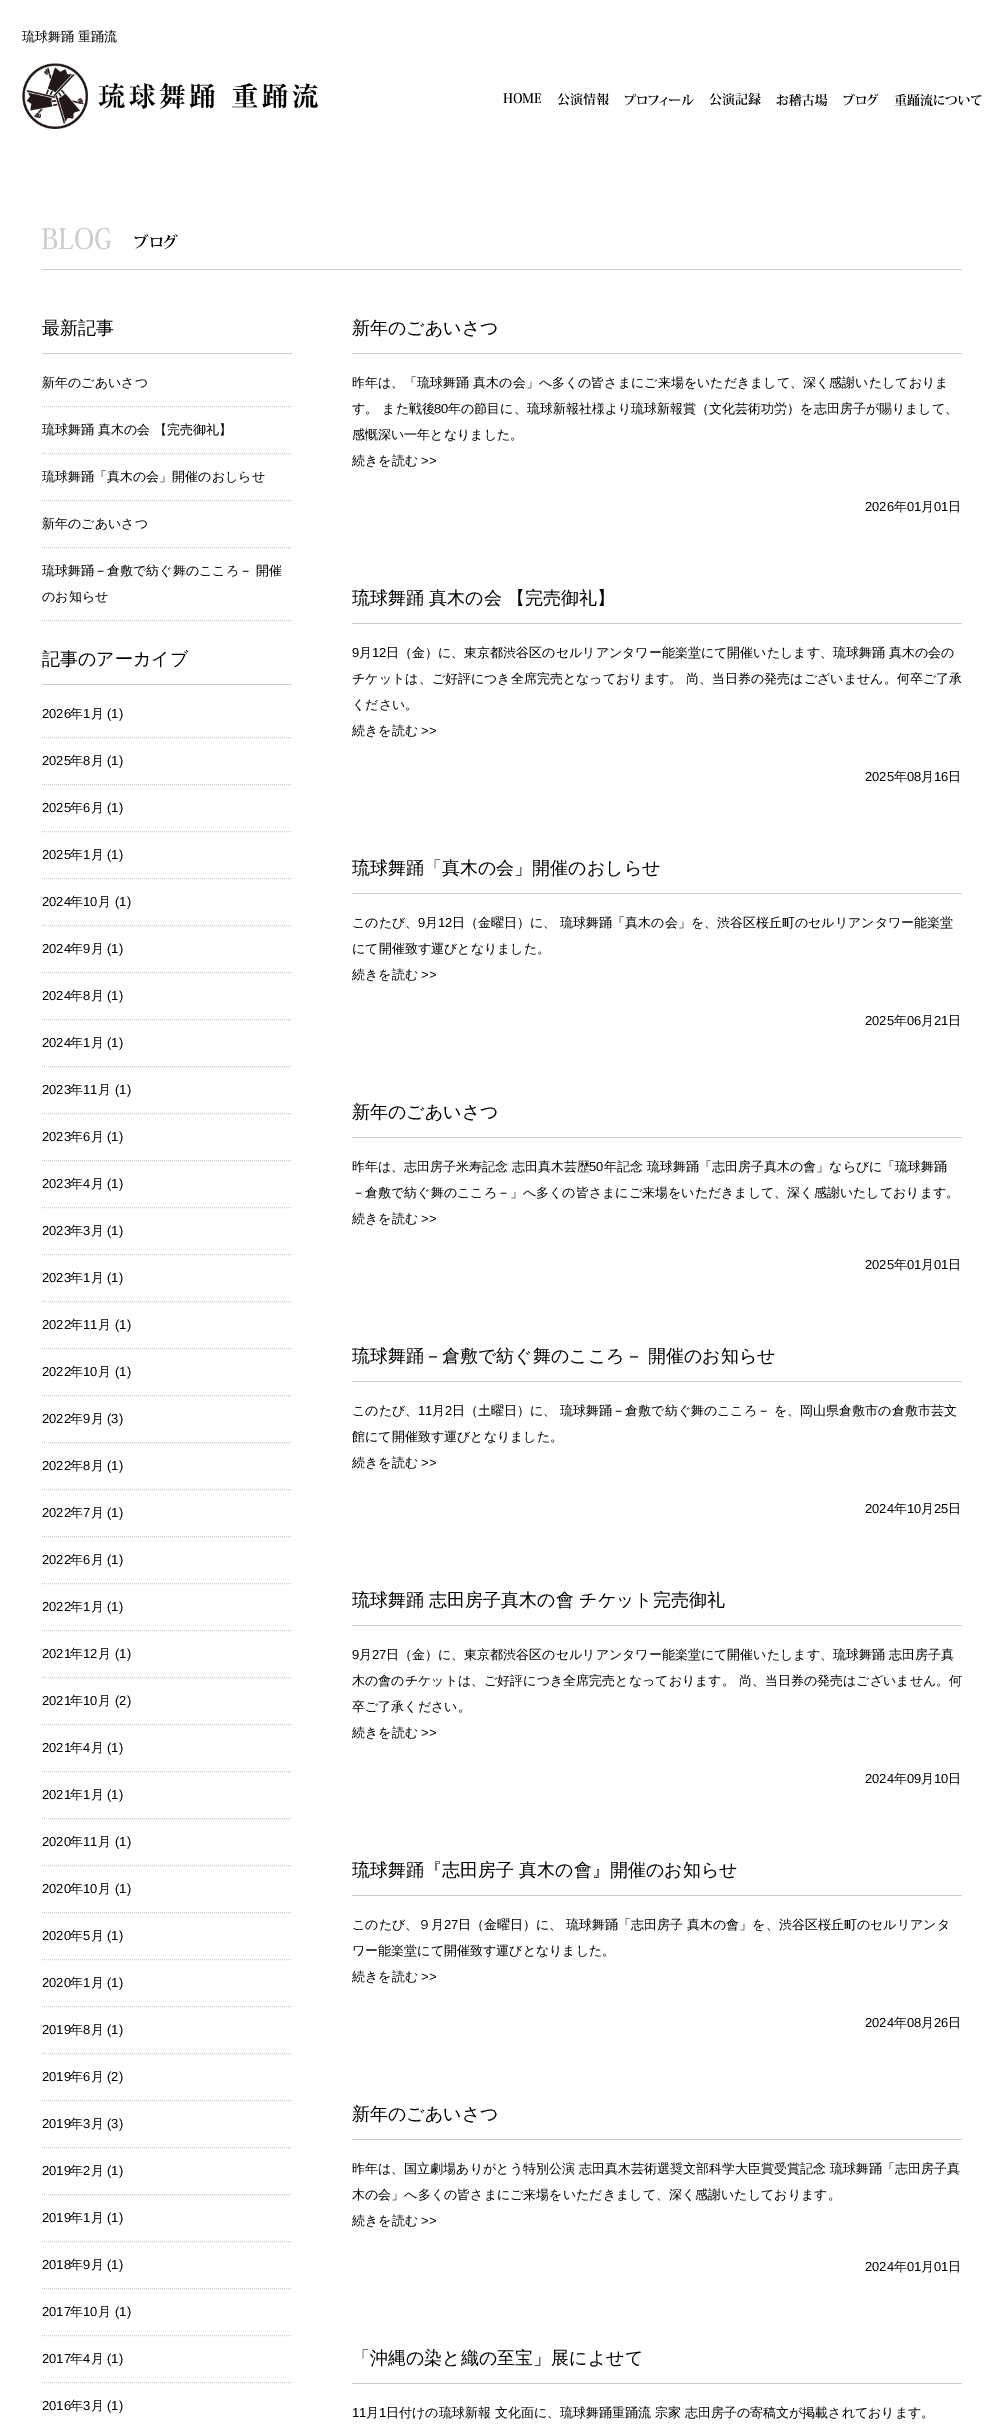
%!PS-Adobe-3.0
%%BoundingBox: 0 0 1003 2429
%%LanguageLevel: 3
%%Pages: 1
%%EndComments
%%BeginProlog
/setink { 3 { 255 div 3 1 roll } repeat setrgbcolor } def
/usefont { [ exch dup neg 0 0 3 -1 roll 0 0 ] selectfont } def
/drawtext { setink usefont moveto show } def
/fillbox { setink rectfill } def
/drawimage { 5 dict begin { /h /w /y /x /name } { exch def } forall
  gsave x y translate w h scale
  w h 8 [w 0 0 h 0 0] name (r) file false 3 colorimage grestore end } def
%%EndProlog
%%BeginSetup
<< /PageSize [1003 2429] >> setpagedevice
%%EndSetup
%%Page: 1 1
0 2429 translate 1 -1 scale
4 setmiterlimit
0 0 1003 2429 255 255 255 fillbox
gsave
22 10 960 156 rectclip
(琉球舞踊 重踊流) 22 41 /WenQuanYiZenHei-Medium 13 0 0 0 drawtext
grestore
(assets/img1.rgb) 22 63 296 66 drawimage
(assets/img2.rgb) 503 93 39 11 drawimage
(assets/img3.rgb) 557 93 52 13 drawimage
(assets/img4.rgb) 624 93 70 13 drawimage
(assets/img5.rgb) 709 93 52 13 drawimage
(assets/img6.rgb) 776 93 52 13 drawimage
(assets/img7.rgb) 843 93 36 13 drawimage
(assets/img8.rgb) 894 93 88 13 drawimage
(assets/img9.rgb) 42 227 920 43 drawimage
(最新記事) 42 334 /WenQuanYiZenHei-Medium 18 0 0 0 drawtext
42 353 250 1 204 204 204 fillbox
[1 1] 0 setdash
42 406.5 moveto 292 406.5 lineto stroke
(新年のごあいさつ) 42 387 /WenQuanYiZenHei-Medium 13 0 0 0 drawtext
204 204 204 setink
42 453.5 moveto 292 453.5 lineto stroke
gsave
42 290 250 331 rectclip
(琉球舞踊 真木の会 【完売御礼】) 42 434 /WenQuanYiZenHei-Medium 13 0 0 0 drawtext
grestore
42 500.5 moveto 292 500.5 lineto stroke
gsave
42 290 250 331 rectclip
(琉球舞踊「真木の会」開催のおしらせ) 42 481 /WenQuanYiZenHei-Medium 13 0 0 0 drawtext
grestore
42 547.5 moveto 292 547.5 lineto stroke
(新年のごあいさつ) 42 528 /WenQuanYiZenHei-Medium 13 0 0 0 drawtext
204 204 204 setink
42 620.5 moveto 292 620.5 lineto stroke
gsave
42 290 250 331 rectclip
(琉球舞踊－倉敷で紡ぐ舞のこころ－ 開催) 42 575 /WenQuanYiZenHei-Medium 13 0 0 0 drawtext
grestore
(のお知らせ) 42 601 /WenQuanYiZenHei-Medium 13 0 0 0 drawtext
(記事のアーカイブ) 42 665 /WenQuanYiZenHei-Medium 18 0 0 0 drawtext
42 684 250 1 204 204 204 fillbox
42 737.5 moveto 292 737.5 lineto stroke
(2026) 42 718 /LiberationSans-Regular 13 0 0 0 drawtext
(年) 70 718 /WenQuanYiZenHei-Medium 13 0 0 0 drawtext
(1) 83 718 /LiberationSans-Regular 13 0 0 0 drawtext
(月) 91 718 /WenQuanYiZenHei-Medium 13 0 0 0 drawtext
(\(1\)) 107 718 /LiberationSans-Regular 13 0 0 0 drawtext
204 204 204 setink
42 784.5 moveto 292 784.5 lineto stroke
(2025) 42 765 /LiberationSans-Regular 13 0 0 0 drawtext
(年) 70 765 /WenQuanYiZenHei-Medium 13 0 0 0 drawtext
(8) 83 765 /LiberationSans-Regular 13 0 0 0 drawtext
(月) 91 765 /WenQuanYiZenHei-Medium 13 0 0 0 drawtext
(\(1\)) 107 765 /LiberationSans-Regular 13 0 0 0 drawtext
204 204 204 setink
42 831.5 moveto 292 831.5 lineto stroke
(2025) 42 812 /LiberationSans-Regular 13 0 0 0 drawtext
(年) 70 812 /WenQuanYiZenHei-Medium 13 0 0 0 drawtext
(6) 83 812 /LiberationSans-Regular 13 0 0 0 drawtext
(月) 91 812 /WenQuanYiZenHei-Medium 13 0 0 0 drawtext
(\(1\)) 107 812 /LiberationSans-Regular 13 0 0 0 drawtext
204 204 204 setink
42 878.5 moveto 292 878.5 lineto stroke
(2025) 42 859 /LiberationSans-Regular 13 0 0 0 drawtext
(年) 70 859 /WenQuanYiZenHei-Medium 13 0 0 0 drawtext
(1) 83 859 /LiberationSans-Regular 13 0 0 0 drawtext
(月) 91 859 /WenQuanYiZenHei-Medium 13 0 0 0 drawtext
(\(1\)) 107 859 /LiberationSans-Regular 13 0 0 0 drawtext
204 204 204 setink
42 925.5 moveto 292 925.5 lineto stroke
(2024) 42 906 /LiberationSans-Regular 13 0 0 0 drawtext
(年) 70 906 /WenQuanYiZenHei-Medium 13 0 0 0 drawtext
(10) 83 906 /LiberationSans-Regular 13 0 0 0 drawtext
(月) 98 906 /WenQuanYiZenHei-Medium 13 0 0 0 drawtext
(\(1\)) 115 906 /LiberationSans-Regular 13 0 0 0 drawtext
204 204 204 setink
42 972.5 moveto 292 972.5 lineto stroke
(2024) 42 953 /LiberationSans-Regular 13 0 0 0 drawtext
(年) 70 953 /WenQuanYiZenHei-Medium 13 0 0 0 drawtext
(9) 83 953 /LiberationSans-Regular 13 0 0 0 drawtext
(月) 91 953 /WenQuanYiZenHei-Medium 13 0 0 0 drawtext
(\(1\)) 107 953 /LiberationSans-Regular 13 0 0 0 drawtext
204 204 204 setink
42 1019.5 moveto 292 1019.5 lineto stroke
(2024) 42 1000 /LiberationSans-Regular 13 0 0 0 drawtext
(年) 70 1000 /WenQuanYiZenHei-Medium 13 0 0 0 drawtext
(8) 83 1000 /LiberationSans-Regular 13 0 0 0 drawtext
(月) 91 1000 /WenQuanYiZenHei-Medium 13 0 0 0 drawtext
(\(1\)) 107 1000 /LiberationSans-Regular 13 0 0 0 drawtext
204 204 204 setink
42 1066.5 moveto 292 1066.5 lineto stroke
(2024) 42 1047 /LiberationSans-Regular 13 0 0 0 drawtext
(年) 70 1047 /WenQuanYiZenHei-Medium 13 0 0 0 drawtext
(1) 83 1047 /LiberationSans-Regular 13 0 0 0 drawtext
(月) 91 1047 /WenQuanYiZenHei-Medium 13 0 0 0 drawtext
(\(1\)) 107 1047 /LiberationSans-Regular 13 0 0 0 drawtext
204 204 204 setink
42 1113.5 moveto 292 1113.5 lineto stroke
(2023) 42 1094 /LiberationSans-Regular 13 0 0 0 drawtext
(年) 70 1094 /WenQuanYiZenHei-Medium 13 0 0 0 drawtext
(11) 83 1094 /LiberationSans-Regular 13 0 0 0 drawtext
(月) 98 1094 /WenQuanYiZenHei-Medium 13 0 0 0 drawtext
(\(1\)) 115 1094 /LiberationSans-Regular 13 0 0 0 drawtext
204 204 204 setink
42 1160.5 moveto 292 1160.5 lineto stroke
(2023) 42 1141 /LiberationSans-Regular 13 0 0 0 drawtext
(年) 70 1141 /WenQuanYiZenHei-Medium 13 0 0 0 drawtext
(6) 83 1141 /LiberationSans-Regular 13 0 0 0 drawtext
(月) 91 1141 /WenQuanYiZenHei-Medium 13 0 0 0 drawtext
(\(1\)) 107 1141 /LiberationSans-Regular 13 0 0 0 drawtext
204 204 204 setink
42 1207.5 moveto 292 1207.5 lineto stroke
(2023) 42 1188 /LiberationSans-Regular 13 0 0 0 drawtext
(年) 70 1188 /WenQuanYiZenHei-Medium 13 0 0 0 drawtext
(4) 83 1188 /LiberationSans-Regular 13 0 0 0 drawtext
(月) 91 1188 /WenQuanYiZenHei-Medium 13 0 0 0 drawtext
(\(1\)) 107 1188 /LiberationSans-Regular 13 0 0 0 drawtext
204 204 204 setink
42 1254.5 moveto 292 1254.5 lineto stroke
(2023) 42 1235 /LiberationSans-Regular 13 0 0 0 drawtext
(年) 70 1235 /WenQuanYiZenHei-Medium 13 0 0 0 drawtext
(3) 83 1235 /LiberationSans-Regular 13 0 0 0 drawtext
(月) 91 1235 /WenQuanYiZenHei-Medium 13 0 0 0 drawtext
(\(1\)) 107 1235 /LiberationSans-Regular 13 0 0 0 drawtext
204 204 204 setink
42 1301.5 moveto 292 1301.5 lineto stroke
(2023) 42 1282 /LiberationSans-Regular 13 0 0 0 drawtext
(年) 70 1282 /WenQuanYiZenHei-Medium 13 0 0 0 drawtext
(1) 83 1282 /LiberationSans-Regular 13 0 0 0 drawtext
(月) 91 1282 /WenQuanYiZenHei-Medium 13 0 0 0 drawtext
(\(1\)) 107 1282 /LiberationSans-Regular 13 0 0 0 drawtext
204 204 204 setink
42 1348.5 moveto 292 1348.5 lineto stroke
(2022) 42 1329 /LiberationSans-Regular 13 0 0 0 drawtext
(年) 70 1329 /WenQuanYiZenHei-Medium 13 0 0 0 drawtext
(11) 83 1329 /LiberationSans-Regular 13 0 0 0 drawtext
(月) 98 1329 /WenQuanYiZenHei-Medium 13 0 0 0 drawtext
(\(1\)) 115 1329 /LiberationSans-Regular 13 0 0 0 drawtext
204 204 204 setink
42 1395.5 moveto 292 1395.5 lineto stroke
(2022) 42 1376 /LiberationSans-Regular 13 0 0 0 drawtext
(年) 70 1376 /WenQuanYiZenHei-Medium 13 0 0 0 drawtext
(10) 83 1376 /LiberationSans-Regular 13 0 0 0 drawtext
(月) 98 1376 /WenQuanYiZenHei-Medium 13 0 0 0 drawtext
(\(1\)) 115 1376 /LiberationSans-Regular 13 0 0 0 drawtext
204 204 204 setink
42 1442.5 moveto 292 1442.5 lineto stroke
(2022) 42 1423 /LiberationSans-Regular 13 0 0 0 drawtext
(年) 70 1423 /WenQuanYiZenHei-Medium 13 0 0 0 drawtext
(9) 83 1423 /LiberationSans-Regular 13 0 0 0 drawtext
(月) 91 1423 /WenQuanYiZenHei-Medium 13 0 0 0 drawtext
(\(3\)) 107 1423 /LiberationSans-Regular 13 0 0 0 drawtext
204 204 204 setink
42 1489.5 moveto 292 1489.5 lineto stroke
(2022) 42 1470 /LiberationSans-Regular 13 0 0 0 drawtext
(年) 70 1470 /WenQuanYiZenHei-Medium 13 0 0 0 drawtext
(8) 83 1470 /LiberationSans-Regular 13 0 0 0 drawtext
(月) 91 1470 /WenQuanYiZenHei-Medium 13 0 0 0 drawtext
(\(1\)) 107 1470 /LiberationSans-Regular 13 0 0 0 drawtext
204 204 204 setink
42 1536.5 moveto 292 1536.5 lineto stroke
(2022) 42 1517 /LiberationSans-Regular 13 0 0 0 drawtext
(年) 70 1517 /WenQuanYiZenHei-Medium 13 0 0 0 drawtext
(7) 83 1517 /LiberationSans-Regular 13 0 0 0 drawtext
(月) 91 1517 /WenQuanYiZenHei-Medium 13 0 0 0 drawtext
(\(1\)) 107 1517 /LiberationSans-Regular 13 0 0 0 drawtext
204 204 204 setink
42 1583.5 moveto 292 1583.5 lineto stroke
(2022) 42 1564 /LiberationSans-Regular 13 0 0 0 drawtext
(年) 70 1564 /WenQuanYiZenHei-Medium 13 0 0 0 drawtext
(6) 83 1564 /LiberationSans-Regular 13 0 0 0 drawtext
(月) 91 1564 /WenQuanYiZenHei-Medium 13 0 0 0 drawtext
(\(1\)) 107 1564 /LiberationSans-Regular 13 0 0 0 drawtext
204 204 204 setink
42 1630.5 moveto 292 1630.5 lineto stroke
(2022) 42 1611 /LiberationSans-Regular 13 0 0 0 drawtext
(年) 70 1611 /WenQuanYiZenHei-Medium 13 0 0 0 drawtext
(1) 83 1611 /LiberationSans-Regular 13 0 0 0 drawtext
(月) 91 1611 /WenQuanYiZenHei-Medium 13 0 0 0 drawtext
(\(1\)) 107 1611 /LiberationSans-Regular 13 0 0 0 drawtext
204 204 204 setink
42 1677.5 moveto 292 1677.5 lineto stroke
(2021) 42 1658 /LiberationSans-Regular 13 0 0 0 drawtext
(年) 70 1658 /WenQuanYiZenHei-Medium 13 0 0 0 drawtext
(12) 83 1658 /LiberationSans-Regular 13 0 0 0 drawtext
(月) 98 1658 /WenQuanYiZenHei-Medium 13 0 0 0 drawtext
(\(1\)) 115 1658 /LiberationSans-Regular 13 0 0 0 drawtext
204 204 204 setink
42 1724.5 moveto 292 1724.5 lineto stroke
(2021) 42 1705 /LiberationSans-Regular 13 0 0 0 drawtext
(年) 70 1705 /WenQuanYiZenHei-Medium 13 0 0 0 drawtext
(10) 83 1705 /LiberationSans-Regular 13 0 0 0 drawtext
(月) 98 1705 /WenQuanYiZenHei-Medium 13 0 0 0 drawtext
(\(2\)) 115 1705 /LiberationSans-Regular 13 0 0 0 drawtext
204 204 204 setink
42 1771.5 moveto 292 1771.5 lineto stroke
(2021) 42 1752 /LiberationSans-Regular 13 0 0 0 drawtext
(年) 70 1752 /WenQuanYiZenHei-Medium 13 0 0 0 drawtext
(4) 83 1752 /LiberationSans-Regular 13 0 0 0 drawtext
(月) 91 1752 /WenQuanYiZenHei-Medium 13 0 0 0 drawtext
(\(1\)) 107 1752 /LiberationSans-Regular 13 0 0 0 drawtext
204 204 204 setink
42 1818.5 moveto 292 1818.5 lineto stroke
(2021) 42 1799 /LiberationSans-Regular 13 0 0 0 drawtext
(年) 70 1799 /WenQuanYiZenHei-Medium 13 0 0 0 drawtext
(1) 83 1799 /LiberationSans-Regular 13 0 0 0 drawtext
(月) 91 1799 /WenQuanYiZenHei-Medium 13 0 0 0 drawtext
(\(1\)) 107 1799 /LiberationSans-Regular 13 0 0 0 drawtext
204 204 204 setink
42 1865.5 moveto 292 1865.5 lineto stroke
(2020) 42 1846 /LiberationSans-Regular 13 0 0 0 drawtext
(年) 70 1846 /WenQuanYiZenHei-Medium 13 0 0 0 drawtext
(11) 83 1846 /LiberationSans-Regular 13 0 0 0 drawtext
(月) 98 1846 /WenQuanYiZenHei-Medium 13 0 0 0 drawtext
(\(1\)) 115 1846 /LiberationSans-Regular 13 0 0 0 drawtext
204 204 204 setink
42 1912.5 moveto 292 1912.5 lineto stroke
(2020) 42 1893 /LiberationSans-Regular 13 0 0 0 drawtext
(年) 70 1893 /WenQuanYiZenHei-Medium 13 0 0 0 drawtext
(10) 83 1893 /LiberationSans-Regular 13 0 0 0 drawtext
(月) 98 1893 /WenQuanYiZenHei-Medium 13 0 0 0 drawtext
(\(1\)) 115 1893 /LiberationSans-Regular 13 0 0 0 drawtext
204 204 204 setink
42 1959.5 moveto 292 1959.5 lineto stroke
(2020) 42 1940 /LiberationSans-Regular 13 0 0 0 drawtext
(年) 70 1940 /WenQuanYiZenHei-Medium 13 0 0 0 drawtext
(5) 83 1940 /LiberationSans-Regular 13 0 0 0 drawtext
(月) 91 1940 /WenQuanYiZenHei-Medium 13 0 0 0 drawtext
(\(1\)) 107 1940 /LiberationSans-Regular 13 0 0 0 drawtext
204 204 204 setink
42 2006.5 moveto 292 2006.5 lineto stroke
(2020) 42 1987 /LiberationSans-Regular 13 0 0 0 drawtext
(年) 70 1987 /WenQuanYiZenHei-Medium 13 0 0 0 drawtext
(1) 83 1987 /LiberationSans-Regular 13 0 0 0 drawtext
(月) 91 1987 /WenQuanYiZenHei-Medium 13 0 0 0 drawtext
(\(1\)) 107 1987 /LiberationSans-Regular 13 0 0 0 drawtext
204 204 204 setink
42 2053.5 moveto 292 2053.5 lineto stroke
(2019) 42 2034 /LiberationSans-Regular 13 0 0 0 drawtext
(年) 70 2034 /WenQuanYiZenHei-Medium 13 0 0 0 drawtext
(8) 83 2034 /LiberationSans-Regular 13 0 0 0 drawtext
(月) 91 2034 /WenQuanYiZenHei-Medium 13 0 0 0 drawtext
(\(1\)) 107 2034 /LiberationSans-Regular 13 0 0 0 drawtext
204 204 204 setink
42 2100.5 moveto 292 2100.5 lineto stroke
(2019) 42 2081 /LiberationSans-Regular 13 0 0 0 drawtext
(年) 70 2081 /WenQuanYiZenHei-Medium 13 0 0 0 drawtext
(6) 83 2081 /LiberationSans-Regular 13 0 0 0 drawtext
(月) 91 2081 /WenQuanYiZenHei-Medium 13 0 0 0 drawtext
(\(2\)) 107 2081 /LiberationSans-Regular 13 0 0 0 drawtext
204 204 204 setink
42 2147.5 moveto 292 2147.5 lineto stroke
(2019) 42 2128 /LiberationSans-Regular 13 0 0 0 drawtext
(年) 70 2128 /WenQuanYiZenHei-Medium 13 0 0 0 drawtext
(3) 83 2128 /LiberationSans-Regular 13 0 0 0 drawtext
(月) 91 2128 /WenQuanYiZenHei-Medium 13 0 0 0 drawtext
(\(3\)) 107 2128 /LiberationSans-Regular 13 0 0 0 drawtext
204 204 204 setink
42 2194.5 moveto 292 2194.5 lineto stroke
(2019) 42 2175 /LiberationSans-Regular 13 0 0 0 drawtext
(年) 70 2175 /WenQuanYiZenHei-Medium 13 0 0 0 drawtext
(2) 83 2175 /LiberationSans-Regular 13 0 0 0 drawtext
(月) 91 2175 /WenQuanYiZenHei-Medium 13 0 0 0 drawtext
(\(1\)) 107 2175 /LiberationSans-Regular 13 0 0 0 drawtext
204 204 204 setink
42 2241.5 moveto 292 2241.5 lineto stroke
(2019) 42 2222 /LiberationSans-Regular 13 0 0 0 drawtext
(年) 70 2222 /WenQuanYiZenHei-Medium 13 0 0 0 drawtext
(1) 83 2222 /LiberationSans-Regular 13 0 0 0 drawtext
(月) 91 2222 /WenQuanYiZenHei-Medium 13 0 0 0 drawtext
(\(1\)) 107 2222 /LiberationSans-Regular 13 0 0 0 drawtext
204 204 204 setink
42 2288.5 moveto 292 2288.5 lineto stroke
(2018) 42 2269 /LiberationSans-Regular 13 0 0 0 drawtext
(年) 70 2269 /WenQuanYiZenHei-Medium 13 0 0 0 drawtext
(9) 83 2269 /LiberationSans-Regular 13 0 0 0 drawtext
(月) 91 2269 /WenQuanYiZenHei-Medium 13 0 0 0 drawtext
(\(1\)) 107 2269 /LiberationSans-Regular 13 0 0 0 drawtext
204 204 204 setink
42 2335.5 moveto 292 2335.5 lineto stroke
(2017) 42 2316 /LiberationSans-Regular 13 0 0 0 drawtext
(年) 70 2316 /WenQuanYiZenHei-Medium 13 0 0 0 drawtext
(10) 83 2316 /LiberationSans-Regular 13 0 0 0 drawtext
(月) 98 2316 /WenQuanYiZenHei-Medium 13 0 0 0 drawtext
(\(1\)) 115 2316 /LiberationSans-Regular 13 0 0 0 drawtext
204 204 204 setink
42 2382.5 moveto 292 2382.5 lineto stroke
(2017) 42 2363 /LiberationSans-Regular 13 0 0 0 drawtext
(年) 70 2363 /WenQuanYiZenHei-Medium 13 0 0 0 drawtext
(4) 83 2363 /LiberationSans-Regular 13 0 0 0 drawtext
(月) 91 2363 /WenQuanYiZenHei-Medium 13 0 0 0 drawtext
(\(1\)) 107 2363 /LiberationSans-Regular 13 0 0 0 drawtext
(2016) 42 2410 /LiberationSans-Regular 13 0 0 0 drawtext
(年) 70 2410 /WenQuanYiZenHei-Medium 13 0 0 0 drawtext
(3) 83 2410 /LiberationSans-Regular 13 0 0 0 drawtext
(月) 91 2410 /WenQuanYiZenHei-Medium 13 0 0 0 drawtext
(\(1\)) 107 2410 /LiberationSans-Regular 13 0 0 0 drawtext
(新年のごあいさつ) 352 334 /WenQuanYiZenHei-Medium 18 0 0 0 drawtext
352 353 610 1 204 204 204 fillbox
(昨年は、「琉球舞踊 真木の会」へ多くの皆さまにご来場をいただきまして、深く感謝いたしておりま) 352 387 /WenQuanYiZenHei-Medium 13 0 0 0 drawtext
(す。 また戦後) 352 413 /WenQuanYiZenHei-Medium 13 0 0 0 drawtext
(80) 434 413 /LiberationSans-Regular 13 0 0 0 drawtext
(年の節目に、琉球新報社様より琉球新報賞（文化芸術功労）を志田房子が賜りまして、) 448 413 /WenQuanYiZenHei-Medium 13 0 0 0 drawtext
(感慨深い一年となりました。) 352 439 /WenQuanYiZenHei-Medium 13 0 0 0 drawtext
gsave
352 360 610 200 rectclip
(続きを読む) 352 465 /WenQuanYiZenHei-Medium 13 0 0 0 drawtext
grestore
(>>) 421 465 /LiberationSans-Regular 13 0 0 0 drawtext
(2026) 865 511 /LiberationSans-Regular 13 0 0 0 drawtext
(年) 894 511 /WenQuanYiZenHei-Medium 13 0 0 0 drawtext
(01) 907 511 /LiberationSans-Regular 13 0 0 0 drawtext
(月) 921 511 /WenQuanYiZenHei-Medium 13 0 0 0 drawtext
(01) 934 511 /LiberationSans-Regular 13 0 0 0 drawtext
(日) 948 511 /WenQuanYiZenHei-Medium 13 0 0 0 drawtext
gsave
352 560 610 270 rectclip
(琉球舞踊 真木の会 【完売御礼】) 352 604 /WenQuanYiZenHei-Medium 18 0 0 0 drawtext
grestore
352 623 610 1 204 204 204 fillbox
(9) 352 657 /LiberationSans-Regular 13 0 0 0 drawtext
(月) 359 657 /WenQuanYiZenHei-Medium 13 0 0 0 drawtext
(12) 372 657 /LiberationSans-Regular 13 0 0 0 drawtext
(日（金）に、東京都渋谷区のセルリアンタワー能楽堂にて開催いたします、琉球舞踊 真木の会の) 386 657 /WenQuanYiZenHei-Medium 13 0 0 0 drawtext
(チケットは、ご好評につき全席完売となっております。 尚、当日券の発売はございません。何卒ご了承) 352 683 /WenQuanYiZenHei-Medium 13 0 0 0 drawtext
(ください。) 352 709 /WenQuanYiZenHei-Medium 13 0 0 0 drawtext
gsave
352 630 610 200 rectclip
(続きを読む) 352 735 /WenQuanYiZenHei-Medium 13 0 0 0 drawtext
grestore
(>>) 421 735 /LiberationSans-Regular 13 0 0 0 drawtext
(2025) 865 781 /LiberationSans-Regular 13 0 0 0 drawtext
(年) 894 781 /WenQuanYiZenHei-Medium 13 0 0 0 drawtext
(08) 907 781 /LiberationSans-Regular 13 0 0 0 drawtext
(月) 921 781 /WenQuanYiZenHei-Medium 13 0 0 0 drawtext
(16) 934 781 /LiberationSans-Regular 13 0 0 0 drawtext
(日) 948 781 /WenQuanYiZenHei-Medium 13 0 0 0 drawtext
gsave
352 830 610 244 rectclip
(琉球舞踊「真木の会」開催のおしらせ) 352 874 /WenQuanYiZenHei-Medium 18 0 0 0 drawtext
grestore
352 893 610 1 204 204 204 fillbox
(このたび、) 352 927 /WenQuanYiZenHei-Medium 13 0 0 0 drawtext
(9) 418 927 /LiberationSans-Regular 13 0 0 0 drawtext
(月) 425 927 /WenQuanYiZenHei-Medium 13 0 0 0 drawtext
(12) 438 927 /LiberationSans-Regular 13 0 0 0 drawtext
(日（金曜日）に、 琉球舞踊「真木の会」を、渋谷区桜丘町のセルリアンタワー能楽堂) 452 927 /WenQuanYiZenHei-Medium 13 0 0 0 drawtext
(にて開催致す運びとなりました。) 352 953 /WenQuanYiZenHei-Medium 13 0 0 0 drawtext
gsave
352 900 610 174 rectclip
(続きを読む) 352 979 /WenQuanYiZenHei-Medium 13 0 0 0 drawtext
grestore
(>>) 421 979 /LiberationSans-Regular 13 0 0 0 drawtext
(2025) 865 1025 /LiberationSans-Regular 13 0 0 0 drawtext
(年) 894 1025 /WenQuanYiZenHei-Medium 13 0 0 0 drawtext
(06) 907 1025 /LiberationSans-Regular 13 0 0 0 drawtext
(月) 921 1025 /WenQuanYiZenHei-Medium 13 0 0 0 drawtext
(21) 934 1025 /LiberationSans-Regular 13 0 0 0 drawtext
(日) 948 1025 /WenQuanYiZenHei-Medium 13 0 0 0 drawtext
(新年のごあいさつ) 352 1118 /WenQuanYiZenHei-Medium 18 0 0 0 drawtext
352 1137 610 1 204 204 204 fillbox
(昨年は、志田房子米寿記念 志田真木芸歴) 352 1171 /WenQuanYiZenHei-Medium 13 0 0 0 drawtext
(50) 589 1171 /LiberationSans-Regular 13 0 0 0 drawtext
(年記念 琉球舞踊「志田房子真木の會」ならびに「琉球舞踊) 604 1171 /WenQuanYiZenHei-Medium 13 0 0 0 drawtext
(－倉敷で紡ぐ舞のこころ－」へ多くの皆さまにご来場をいただきまして、深く感謝いたしております。) 352 1197 /WenQuanYiZenHei-Medium 13 0 0 0 drawtext
gsave
352 1144 610 174 rectclip
(続きを読む) 352 1223 /WenQuanYiZenHei-Medium 13 0 0 0 drawtext
grestore
(>>) 421 1223 /LiberationSans-Regular 13 0 0 0 drawtext
(2025) 865 1269 /LiberationSans-Regular 13 0 0 0 drawtext
(年) 894 1269 /WenQuanYiZenHei-Medium 13 0 0 0 drawtext
(01) 907 1269 /LiberationSans-Regular 13 0 0 0 drawtext
(月) 921 1269 /WenQuanYiZenHei-Medium 13 0 0 0 drawtext
(01) 934 1269 /LiberationSans-Regular 13 0 0 0 drawtext
(日) 948 1269 /WenQuanYiZenHei-Medium 13 0 0 0 drawtext
gsave
352 1318 610 244 rectclip
(琉球舞踊－倉敷で紡ぐ舞のこころ－ 開催のお知らせ) 352 1362 /WenQuanYiZenHei-Medium 18 0 0 0 drawtext
grestore
352 1381 610 1 204 204 204 fillbox
(このたび、) 352 1415 /WenQuanYiZenHei-Medium 13 0 0 0 drawtext
(11) 418 1415 /LiberationSans-Regular 13 0 0 0 drawtext
(月) 432 1415 /WenQuanYiZenHei-Medium 13 0 0 0 drawtext
(2) 445 1415 /LiberationSans-Regular 13 0 0 0 drawtext
(日（土曜日）に、 琉球舞踊－倉敷で紡ぐ舞のこころ－ を、岡山県倉敷市の倉敷市芸文) 452 1415 /WenQuanYiZenHei-Medium 13 0 0 0 drawtext
(館にて開催致す運びとなりました。) 352 1441 /WenQuanYiZenHei-Medium 13 0 0 0 drawtext
gsave
352 1388 610 174 rectclip
(続きを読む) 352 1467 /WenQuanYiZenHei-Medium 13 0 0 0 drawtext
grestore
(>>) 421 1467 /LiberationSans-Regular 13 0 0 0 drawtext
(2024) 865 1513 /LiberationSans-Regular 13 0 0 0 drawtext
(年) 894 1513 /WenQuanYiZenHei-Medium 13 0 0 0 drawtext
(10) 907 1513 /LiberationSans-Regular 13 0 0 0 drawtext
(月) 921 1513 /WenQuanYiZenHei-Medium 13 0 0 0 drawtext
(25) 934 1513 /LiberationSans-Regular 13 0 0 0 drawtext
(日) 948 1513 /WenQuanYiZenHei-Medium 13 0 0 0 drawtext
gsave
352 1562 610 270 rectclip
(琉球舞踊 志田房子真木の會 チケット完売御礼) 352 1606 /WenQuanYiZenHei-Medium 18 0 0 0 drawtext
grestore
352 1625 610 1 204 204 204 fillbox
(9) 352 1659 /LiberationSans-Regular 13 0 0 0 drawtext
(月) 359 1659 /WenQuanYiZenHei-Medium 13 0 0 0 drawtext
(27) 372 1659 /LiberationSans-Regular 13 0 0 0 drawtext
(日（金）に、東京都渋谷区のセルリアンタワー能楽堂にて開催いたします、琉球舞踊 志田房子真) 386 1659 /WenQuanYiZenHei-Medium 13 0 0 0 drawtext
(木の會のチケットは、ご好評につき全席完売となっております。 尚、当日券の発売はございません。何) 352 1685 /WenQuanYiZenHei-Medium 13 0 0 0 drawtext
(卒ご了承ください。) 352 1711 /WenQuanYiZenHei-Medium 13 0 0 0 drawtext
gsave
352 1632 610 200 rectclip
(続きを読む) 352 1737 /WenQuanYiZenHei-Medium 13 0 0 0 drawtext
grestore
(>>) 421 1737 /LiberationSans-Regular 13 0 0 0 drawtext
(2024) 865 1783 /LiberationSans-Regular 13 0 0 0 drawtext
(年) 894 1783 /WenQuanYiZenHei-Medium 13 0 0 0 drawtext
(09) 907 1783 /LiberationSans-Regular 13 0 0 0 drawtext
(月) 921 1783 /WenQuanYiZenHei-Medium 13 0 0 0 drawtext
(10) 934 1783 /LiberationSans-Regular 13 0 0 0 drawtext
(日) 948 1783 /WenQuanYiZenHei-Medium 13 0 0 0 drawtext
gsave
352 1832 610 244 rectclip
(琉球舞踊『志田房子 真木の會』開催のお知らせ) 352 1876 /WenQuanYiZenHei-Medium 18 0 0 0 drawtext
grestore
352 1895 610 1 204 204 204 fillbox
(このたび、９月) 352 1929 /WenQuanYiZenHei-Medium 13 0 0 0 drawtext
(27) 444 1929 /LiberationSans-Regular 13 0 0 0 drawtext
(日（金曜日）に、 琉球舞踊「志田房子 真木の會」を、渋谷区桜丘町のセルリアンタ) 458 1929 /WenQuanYiZenHei-Medium 13 0 0 0 drawtext
(ワー能楽堂にて開催致す運びとなりました。) 352 1955 /WenQuanYiZenHei-Medium 13 0 0 0 drawtext
gsave
352 1902 610 174 rectclip
(続きを読む) 352 1981 /WenQuanYiZenHei-Medium 13 0 0 0 drawtext
grestore
(>>) 421 1981 /LiberationSans-Regular 13 0 0 0 drawtext
(2024) 865 2027 /LiberationSans-Regular 13 0 0 0 drawtext
(年) 894 2027 /WenQuanYiZenHei-Medium 13 0 0 0 drawtext
(08) 907 2027 /LiberationSans-Regular 13 0 0 0 drawtext
(月) 921 2027 /WenQuanYiZenHei-Medium 13 0 0 0 drawtext
(26) 934 2027 /LiberationSans-Regular 13 0 0 0 drawtext
(日) 948 2027 /WenQuanYiZenHei-Medium 13 0 0 0 drawtext
(新年のごあいさつ) 352 2120 /WenQuanYiZenHei-Medium 18 0 0 0 drawtext
352 2139 610 1 204 204 204 fillbox
(昨年は、国立劇場ありがとう特別公演 志田真木芸術選奨文部科学大臣賞受賞記念 琉球舞踊「志田房子真) 352 2173 /WenQuanYiZenHei-Medium 13 0 0 0 drawtext
(木の会」へ多くの皆さまにご来場をいただきまして、深く感謝いたしております。) 352 2199 /WenQuanYiZenHei-Medium 13 0 0 0 drawtext
gsave
352 2146 610 174 rectclip
(続きを読む) 352 2225 /WenQuanYiZenHei-Medium 13 0 0 0 drawtext
grestore
(>>) 421 2225 /LiberationSans-Regular 13 0 0 0 drawtext
(2024) 865 2271 /LiberationSans-Regular 13 0 0 0 drawtext
(年) 894 2271 /WenQuanYiZenHei-Medium 13 0 0 0 drawtext
(01) 907 2271 /LiberationSans-Regular 13 0 0 0 drawtext
(月) 921 2271 /WenQuanYiZenHei-Medium 13 0 0 0 drawtext
(01) 934 2271 /LiberationSans-Regular 13 0 0 0 drawtext
(日) 948 2271 /WenQuanYiZenHei-Medium 13 0 0 0 drawtext
(「沖縄の染と織の至宝」展によせて) 352 2364 /WenQuanYiZenHei-Medium 18 0 0 0 drawtext
352 2383 610 1 204 204 204 fillbox
(11) 352 2417 /LiberationSans-Regular 13 0 0 0 drawtext
(月) 366 2417 /WenQuanYiZenHei-Medium 13 0 0 0 drawtext
(1) 379 2417 /LiberationSans-Regular 13 0 0 0 drawtext
(日付けの琉球新報 文化面に、琉球舞踊重踊流 宗家 志田房子の寄稿文が掲載されております。) 386 2417 /WenQuanYiZenHei-Medium 13 0 0 0 drawtext
showpage
%%EOF
